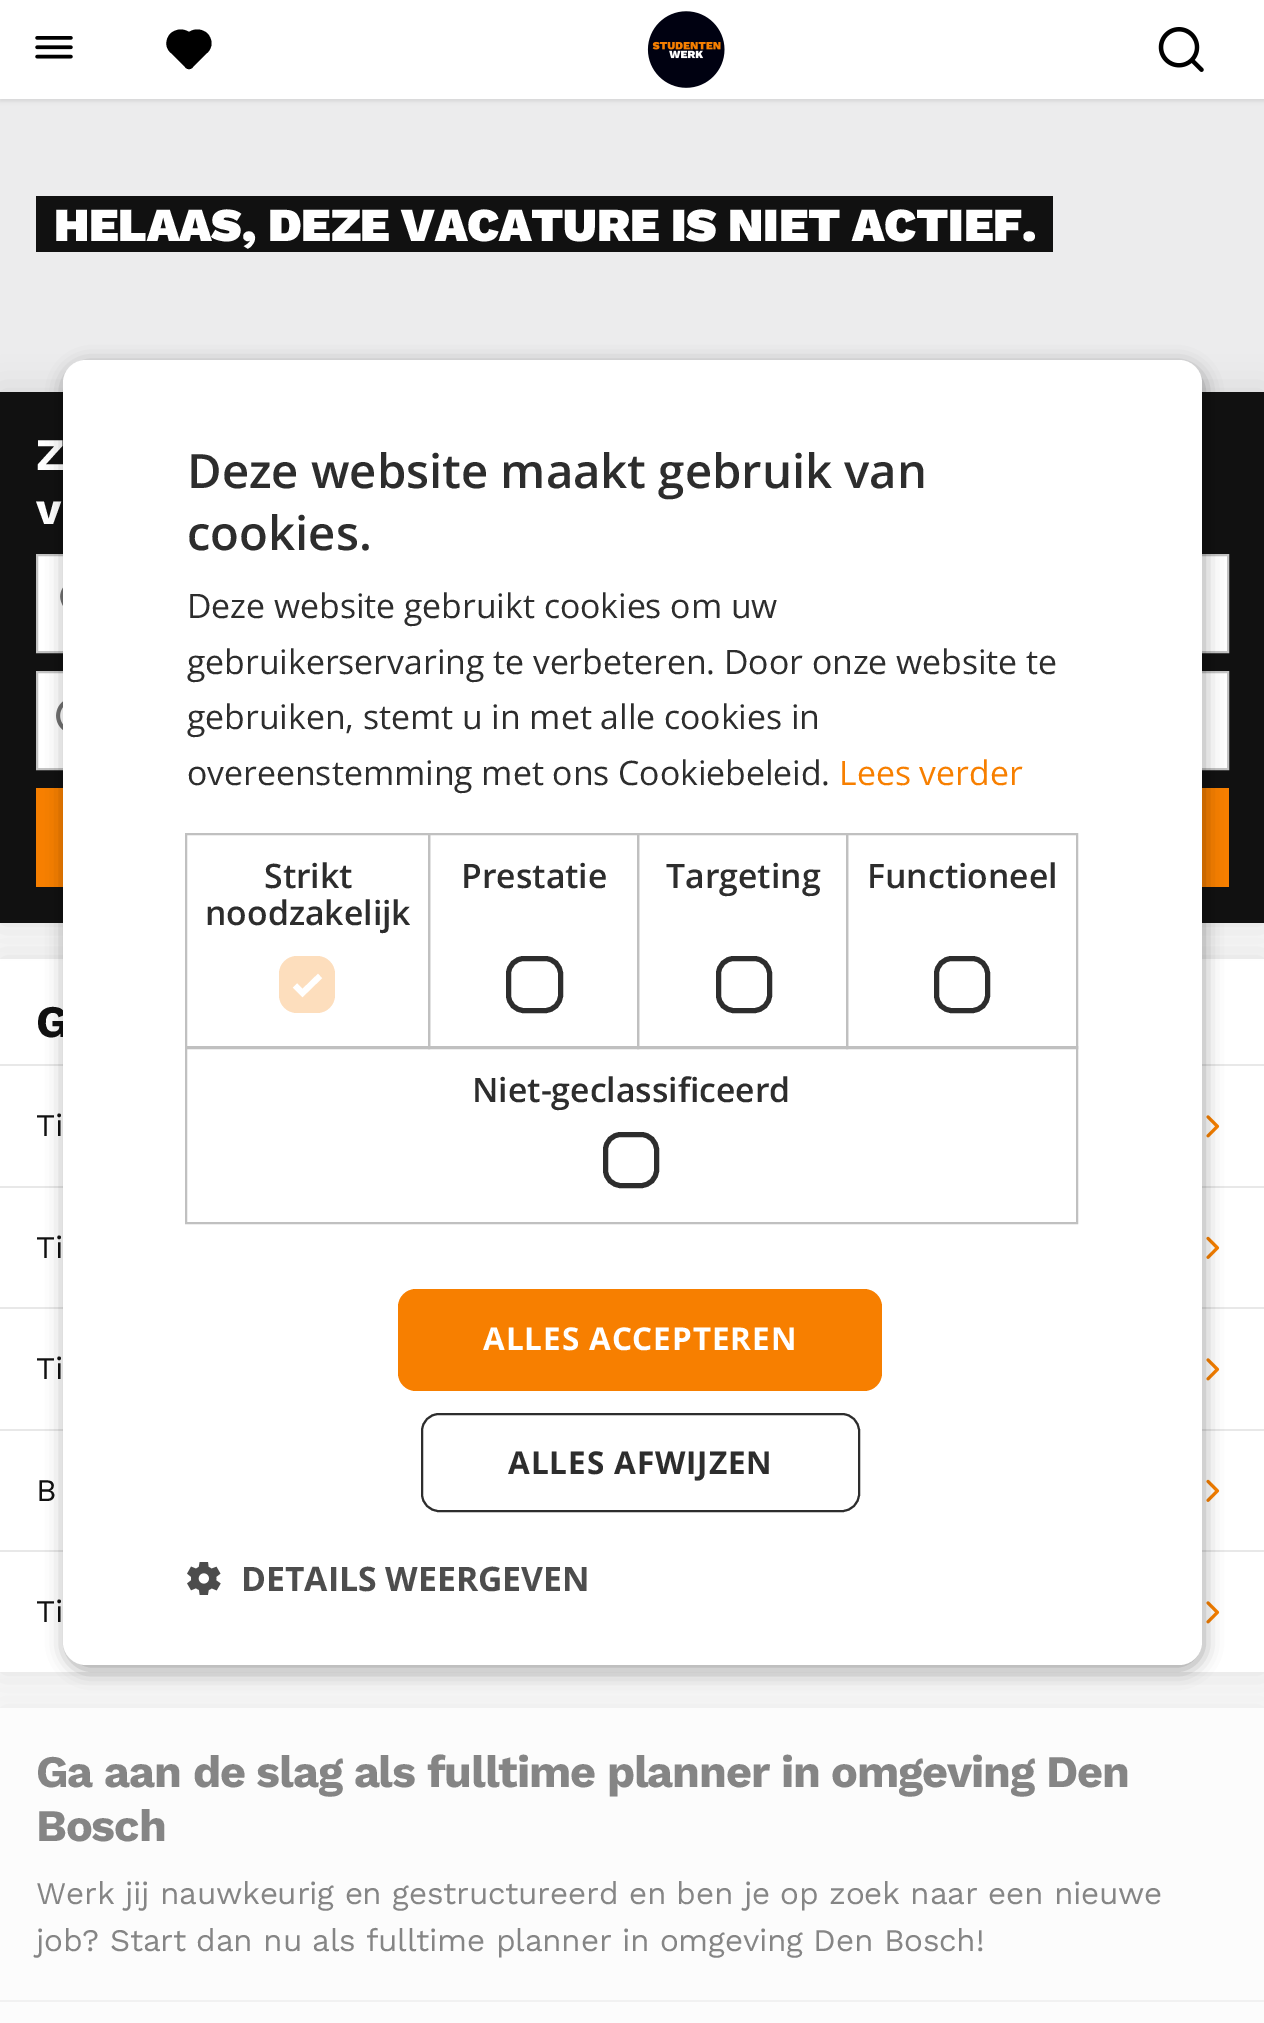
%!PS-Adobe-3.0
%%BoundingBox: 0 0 1264 2023
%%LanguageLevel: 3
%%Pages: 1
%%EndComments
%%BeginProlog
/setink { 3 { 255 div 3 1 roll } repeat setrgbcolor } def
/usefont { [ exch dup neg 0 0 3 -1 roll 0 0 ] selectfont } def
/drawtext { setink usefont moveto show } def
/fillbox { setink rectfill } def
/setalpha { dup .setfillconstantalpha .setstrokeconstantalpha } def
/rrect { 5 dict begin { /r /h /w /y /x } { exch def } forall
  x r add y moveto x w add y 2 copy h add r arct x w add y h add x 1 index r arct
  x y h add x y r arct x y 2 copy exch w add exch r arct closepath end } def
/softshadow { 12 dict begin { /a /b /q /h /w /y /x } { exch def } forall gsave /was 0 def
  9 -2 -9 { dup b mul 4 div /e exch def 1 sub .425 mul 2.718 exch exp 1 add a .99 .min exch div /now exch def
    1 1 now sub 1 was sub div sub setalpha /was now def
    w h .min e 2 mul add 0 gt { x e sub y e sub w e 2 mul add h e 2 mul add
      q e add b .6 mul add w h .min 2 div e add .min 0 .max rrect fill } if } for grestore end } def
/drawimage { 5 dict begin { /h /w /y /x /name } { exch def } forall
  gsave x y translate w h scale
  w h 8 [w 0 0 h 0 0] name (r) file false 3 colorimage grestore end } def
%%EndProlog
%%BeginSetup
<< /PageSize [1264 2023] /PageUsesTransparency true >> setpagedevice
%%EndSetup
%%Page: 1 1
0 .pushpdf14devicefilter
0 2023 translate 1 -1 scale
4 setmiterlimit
0 0 1264 2023 249 249 249 fillbox
0 99 1264 293 236 236 237 fillbox
0 0 0 setink
0 2 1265 99 0 2 0.1 softshadow
0 0 1264 99 255 255 255 fillbox
(assets/img1.rgb) 35 36 38 23 drawimage
0 0 0 setink
207 33 moveto 202 29 195 28 189 32 curveto 183 28 175 29 170 34 curveto 165 40 165 48 171 53 curveto 185 67 lineto 187 70 191 70 193 67 curveto 207 53 lineto 213 48 213 39 207 33 curveto closepath fill
(assets/img2.rgb) 647 11 78 77 drawimage
(assets/img3.rgb) 1158 27 46 45 drawimage
36 196 1017 56 17 17 17 fillbox
/WorkSans-Black 47.25 usefont
255 255 255 setink
54 241 moveto -0.23 0 (HELAAS, DEZE VACATURE IS NIET ACTIEF.) ashow
0 0 0 setink
0 959 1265 713 0 17 0.1 softshadow
0 959 1264 713 255 255 255 fillbox
0 0 0 setink
0 392 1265 531 0 17 0.1 softshadow
0 392 1264 531 17 17 17 fillbox
/WorkSans-Bold 45 usefont
255 255 255 setink
36 470 moveto -1.12 0 (Z) ashow
36 524 moveto -1.12 0 (v) ashow
37 555 moveto 1228 555 lineto 1228 652 lineto 37 652 lineto closepath gsave fill grestore
195 195 195 setink
2 setlinewidth
stroke
(assets/img4.rgb) 60 587 3 19 drawimage
255 255 255 setink
37 672 moveto 1228 672 lineto 1228 769 lineto 37 769 lineto closepath gsave fill grestore
195 195 195 setink
stroke
(assets/img5.rgb) 56 701 7 29 drawimage
36 788 1193 99 247 127 0 fillbox
17 17 17 setink
36 1037 moveto -1.12 0 (G) ashow
0 1064 1264 2 232 232 232 fillbox
/WorkSans-Regular 31.5 usefont
17 17 17 setink
36 1136 moveto -0.23 0 (Ti) ashow
(assets/img6.rgb) 1206 1115 14 23 drawimage
0 1186 1264 2 232 232 232 fillbox
17 17 17 setink
36 1258 moveto -0.23 0 (Ti) ashow
(assets/img7.rgb) 1206 1236 14 23 drawimage
0 1307 1264 2 232 232 232 fillbox
17 17 17 setink
36 1379 moveto -0.23 0 (Ti) ashow
(assets/img6.rgb) 1206 1358 14 23 drawimage
0 1429 1264 2 232 232 232 fillbox
17 17 17 setink
36 1501 moveto -0.23 0 (B) ashow
(assets/img7.rgb) 1206 1479 14 23 drawimage
0 1550 1264 2 232 232 232 fillbox
17 17 17 setink
36 1622 moveto -0.23 0 (Ti) ashow
(assets/img6.rgb) 1206 1601 14 23 drawimage
0 0 0 setink
0 1708 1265 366 0 17 0.05 softshadow
0 1708 1264 315 252 252 252 fillbox
/WorkSans-Bold 45 usefont
133 133 133 setink
36 1787 moveto -1.12 0 (Ga aan de slag als fulltime planner in omgeving Den) ashow
36 1841 moveto -1.12 0 (Bosch) ashow
/WorkSans-Regular 31.5 usefont
36 1904 moveto -0.23 0 (Werk jij nauwkeurig en gestructureerd en ben je op zoek naar een nieuwe) ashow
36 1951 moveto -0.23 0 (job? Start dan nu als fulltime planner in omgeving Den Bosch!) ashow
0 2000 1264 2 241 241 241 fillbox
0 0 0 setink
65 365 1139 1305 23 9 0.35 softshadow
255 255 255 setink
63 360 1139 1305 23 rrect fill
(Deze website maakt gebruik van) 187 488 /OpenSans-SemiBold 47.25 45 45 45 drawtext
(cookies.) 187 550 /OpenSans-SemiBold 47.25 45 45 45 drawtext
(Deze website gebruikt cookies om uw) 187 618 /OpenSans-Regular 33.75 45 45 45 drawtext
(gebruikerservaring te verbeteren. Door onze website te) 187 674 /OpenSans-Regular 33.75 45 45 45 drawtext
(gebruiken, stemt u in met alle cookies in) 187 729 /OpenSans-Regular 33.75 45 45 45 drawtext
(overeenstemming met ons Cookiebeleid.) 187 785 /OpenSans-Regular 33.75 45 45 45 drawtext
(Lees verder) 839 785 /OpenSans-Regular 33.75 247 127 0 drawtext
192 192 192 setink
186 834 243 214 rectstroke
(Strikt) 264 888 /OpenSans-SemiBold 33.75 45 45 45 drawtext
(noodzakelijk) 205 925 /OpenSans-SemiBold 33.75 45 45 45 drawtext
253 222 189 setink
279 956 56 57 18 rrect fill
255 255 255 setink
5.9 setlinewidth
295 985.5 moveto 302.5 993 lineto 320 976 lineto stroke
192 192 192 setink
2 setlinewidth
429 834 209 214 rectstroke
(Prestatie) 461 888 /OpenSans-SemiBold 33.75 45 45 45 drawtext
5 setlinewidth
508.5 958.5 52 52 15.5 rrect stroke
192 192 192 setink
2 setlinewidth
638 834 209 214 rectstroke
(Targeting) 666 888 /OpenSans-SemiBold 33.75 45 45 45 drawtext
5 setlinewidth
718.5 958.5 51 52 15.5 rrect stroke
192 192 192 setink
2 setlinewidth
847 834 230 214 rectstroke
(Functioneel) 867 888 /OpenSans-SemiBold 33.75 45 45 45 drawtext
5 setlinewidth
936.5 958.5 51 52 15.5 rrect stroke
192 192 192 setink
2 setlinewidth
186 1047 891 176 rectstroke
(Niet-geclassificeerd) 472 1102 /OpenSans-SemiBold 33.75 45 45 45 drawtext
5 setlinewidth
605.5 1134.5 51 51 15.5 rrect stroke
247 127 0 setink
398 1289 484 102 18 rrect fill
/OpenSans-Bold 31.5 usefont
255 255 255 setink
483 1350 moveto 0.9 0 (ALLES ACCEPTEREN) ashow
45 45 45 setink
2 setlinewidth
422 1414 437 97 17 rrect stroke
508 1474 moveto 0.9 0 (ALLES AFWIJZEN) ashow
(assets/img8.rgb) 187 1562 34 33 drawimage
(DETAILS WEERGEVEN) 241 1591 /OpenSans-Bold 33.75 77 77 77 drawtext
.poppdf14devicefilter showpage
%%EOF
